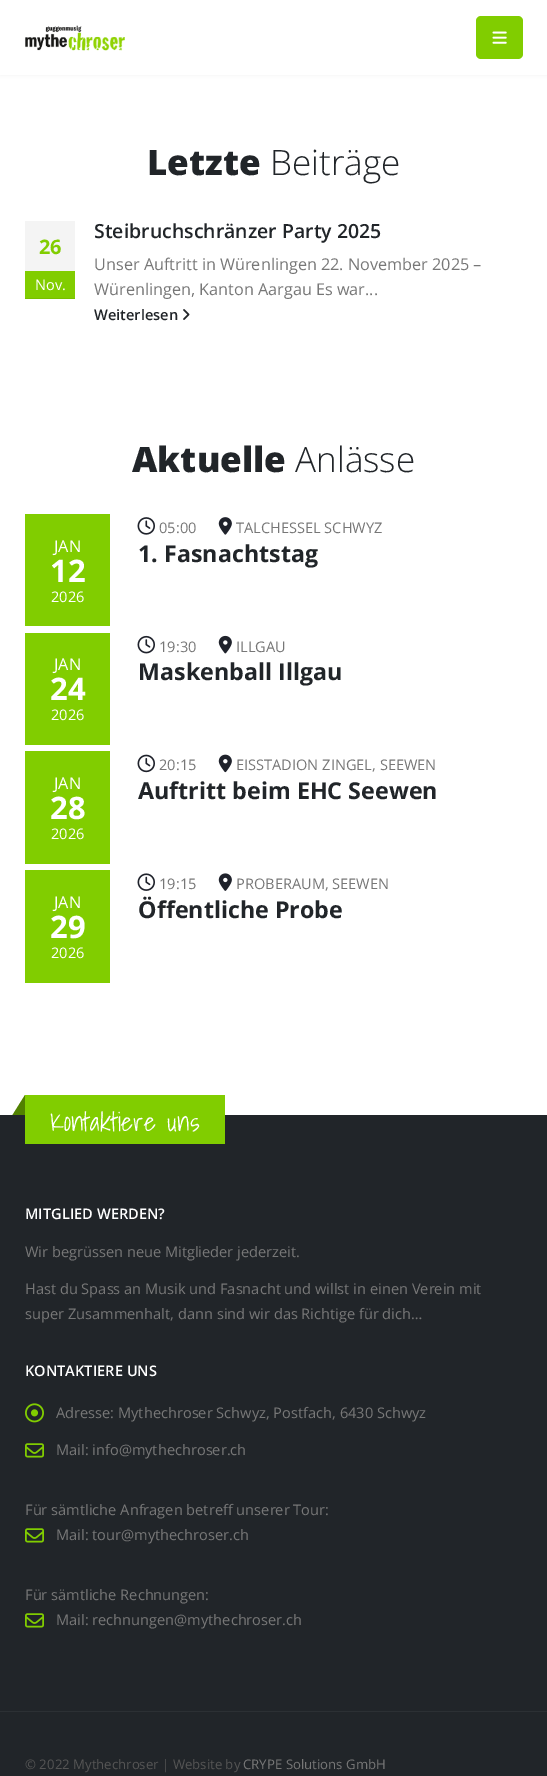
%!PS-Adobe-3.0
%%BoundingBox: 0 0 547 1776
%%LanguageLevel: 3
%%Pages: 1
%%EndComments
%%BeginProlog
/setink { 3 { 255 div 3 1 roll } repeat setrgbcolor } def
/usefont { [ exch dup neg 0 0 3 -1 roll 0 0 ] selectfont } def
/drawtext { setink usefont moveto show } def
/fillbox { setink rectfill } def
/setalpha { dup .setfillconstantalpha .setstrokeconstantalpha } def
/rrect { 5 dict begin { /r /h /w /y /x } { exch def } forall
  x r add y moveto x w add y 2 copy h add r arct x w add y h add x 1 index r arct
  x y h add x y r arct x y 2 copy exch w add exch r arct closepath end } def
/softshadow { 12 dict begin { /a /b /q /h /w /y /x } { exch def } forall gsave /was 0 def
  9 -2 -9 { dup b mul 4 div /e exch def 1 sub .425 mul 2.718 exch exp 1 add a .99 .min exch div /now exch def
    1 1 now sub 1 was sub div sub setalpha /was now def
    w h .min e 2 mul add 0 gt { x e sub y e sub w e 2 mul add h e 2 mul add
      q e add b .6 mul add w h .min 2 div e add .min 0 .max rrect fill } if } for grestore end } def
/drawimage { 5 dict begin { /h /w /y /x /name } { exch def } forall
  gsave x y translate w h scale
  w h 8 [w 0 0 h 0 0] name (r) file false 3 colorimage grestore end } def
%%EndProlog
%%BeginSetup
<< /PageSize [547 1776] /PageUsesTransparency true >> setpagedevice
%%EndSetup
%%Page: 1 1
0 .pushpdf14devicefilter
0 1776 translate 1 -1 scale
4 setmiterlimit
0 0 547 1776 255 255 255 fillbox
0 0 0 setink
0 0 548 75 0 2 0.06 softshadow
0 0 547 75 255 255 255 fillbox
(assets/img1.rgb) 25 25 100 26 drawimage
129 205 0 setink
476 16 47 43 5 rrect fill
(assets/img2.rgb) 492 31 15 13 drawimage
(Letzte) 147 175 /OpenSans-ExtraBold 35 33 37 41 drawtext
(Beiträge) 270 175 /OpenSans-Light 35 33 37 41 drawtext
(Steibruchschränzer Party 2025) 94 238 /OpenSans-SemiBold 19.5 33 37 41 drawtext
25 221 50 50 244 244 244 fillbox
(26) 39 254 /OpenSans-Bold 20 129 205 0 drawtext
25 271 50 27 129 205 0 fillbox
25 298 50 1 120 191 0 fillbox
(Nov.) 35 290 /OpenSans-Regular 14.6 255 255 255 drawtext
(Unser Auftritt in Würenlingen 22. November 2025 –) 94 270 /OpenSans-Regular 16.25 119 119 119 drawtext
(Würenlingen, Kanton Aargau Es war...) 94 295 /OpenSans-Regular 16.25 119 119 119 drawtext
(Weiterlesen) 94 320 /OpenSans-SemiBold 14.6 33 37 41 drawtext
(assets/img3.rgb) 183 309 7 11 drawimage
(Aktuelle) 132 472 /OpenSans-ExtraBold 35 33 37 41 drawtext
(Anlässe) 295 472 /OpenSans-Light 35 33 37 41 drawtext
25 514 85 112 129 205 0 fillbox
(JAN) 54 552 /OpenSans-Regular 16.25 255 255 255 drawtext
(12) 50 582 /OpenSans-Bold 31 255 255 255 drawtext
(2026) 51 602 /OpenSans-Regular 14.6 255 255 255 drawtext
(assets/img4.rgb) 137 517 18 18 drawimage
(05:00) 159 533 /OpenSans-Regular 14.6 119 119 119 drawtext
(assets/img5.rgb) 218 517 14 18 drawimage
(TALCHESSEL SCHWYZ) 236 533 /OpenSans-Regular 14.6 119 119 119 drawtext
(1. Fasnachtstag) 138 562 /OpenSans-Bold 23.25 33 37 41 drawtext
25 633 85 112 129 205 0 fillbox
(JAN) 54 670 /OpenSans-Regular 16.25 255 255 255 drawtext
(24) 50 700 /OpenSans-Bold 31 255 255 255 drawtext
(2026) 51 720 /OpenSans-Regular 14.6 255 255 255 drawtext
(assets/img6.rgb) 137 635 18 19 drawimage
(19:30) 159 652 /OpenSans-Regular 14.6 119 119 119 drawtext
(assets/img7.rgb) 218 635 14 19 drawimage
(ILLGAU) 236 652 /OpenSans-Regular 14.6 119 119 119 drawtext
(Maskenball Illgau) 138 680 /OpenSans-Bold 23.25 33 37 41 drawtext
25 751 85 113 129 205 0 fillbox
(JAN) 54 789 /OpenSans-Regular 16.25 255 255 255 drawtext
(28) 50 819 /OpenSans-Bold 31 255 255 255 drawtext
(2026) 51 839 /OpenSans-Regular 14.6 255 255 255 drawtext
(assets/img8.rgb) 137 754 18 19 drawimage
(20:15) 159 770 /OpenSans-Regular 14.6 119 119 119 drawtext
(assets/img9.rgb) 218 754 14 19 drawimage
(EISSTADION ZINGEL, SEEWEN) 236 770 /OpenSans-Regular 14.6 119 119 119 drawtext
(Auftritt beim EHC Seewen) 138 799 /OpenSans-Bold 23.25 33 37 41 drawtext
25 870 85 113 129 205 0 fillbox
(JAN) 54 908 /OpenSans-Regular 16.25 255 255 255 drawtext
(29) 50 938 /OpenSans-Bold 31 255 255 255 drawtext
(2026) 51 958 /OpenSans-Regular 14.6 255 255 255 drawtext
(assets/img10.rgb) 137 873 18 18 drawimage
(19:15) 159 889 /OpenSans-Regular 14.6 119 119 119 drawtext
(assets/img11.rgb) 218 873 14 18 drawimage
(PROBERAUM, SEEWEN) 236 889 /OpenSans-Regular 14.6 119 119 119 drawtext
(Öffentliche Probe) 138 918 /OpenSans-Bold 23.25 33 37 41 drawtext
0 1115 547 661 33 37 41 fillbox
25 1095 200 49 129 205 0 fillbox
81 129 0 setink
25 1095 moveto 25 1115 lineto 12.5 1115 lineto closepath fill
(Kontaktiere uns) 50 1131 /ShadowsIntoLight-Light 26 255 255 255 drawtext
(MITGLIED WERDEN?) 25 1219 /OpenSans-SemiBold 14.6 255 255 255 drawtext
(Wir begrüssen neue Mitglieder jederzeit.) 25 1257 /OpenSans-Regular 14.6 119 119 119 drawtext
(Hast du Spass an Musik und Fasnacht und willst in einen Verein mit) 25 1294 /OpenSans-Regular 14.6 119 119 119 drawtext
(super Zusammenhalt, dann sind wir das Richtige für dich…) 25 1319 /OpenSans-Regular 14.6 119 119 119 drawtext
(KONTAKTIERE UNS) 25 1376 /OpenSans-SemiBold 14.6 255 255 255 drawtext
(assets/img12.rgb) 25 1403 19 20 drawimage
(Adresse: Mythechroser Schwyz, Postfach, 6430 Schwyz) 56 1418 /OpenSans-Regular 14.6 119 119 119 drawtext
(assets/img13.rgb) 25 1443 19 15 drawimage
(Mail: info@mythechroser.ch) 56 1455 /OpenSans-Regular 14.6 119 119 119 drawtext
(Für sämtliche Anfragen betreff unserer Tour:) 25 1515 /OpenSans-Regular 14.6 119 119 119 drawtext
(assets/img13.rgb) 25 1528 19 15 drawimage
(Mail: tour@mythechroser.ch) 56 1540 /OpenSans-Regular 14.6 119 119 119 drawtext
(Für sämtliche Rechnungen:) 25 1600 /OpenSans-Regular 14.6 119 119 119 drawtext
(assets/img13.rgb) 25 1613 19 15 drawimage
(Mail: rechnungen@mythechroser.ch) 56 1625 /OpenSans-Regular 14.6 119 119 119 drawtext
0 1711 547 1 44 48 52 fillbox
(© 2022 Mythechroser | Website by) 25 1769 /OpenSans-Regular 13.2 85 85 85 drawtext
(CRYPE Solutions GmbH) 243 1769 /OpenSans-Regular 13.2 119 119 119 drawtext
.poppdf14devicefilter showpage
%%EOF
